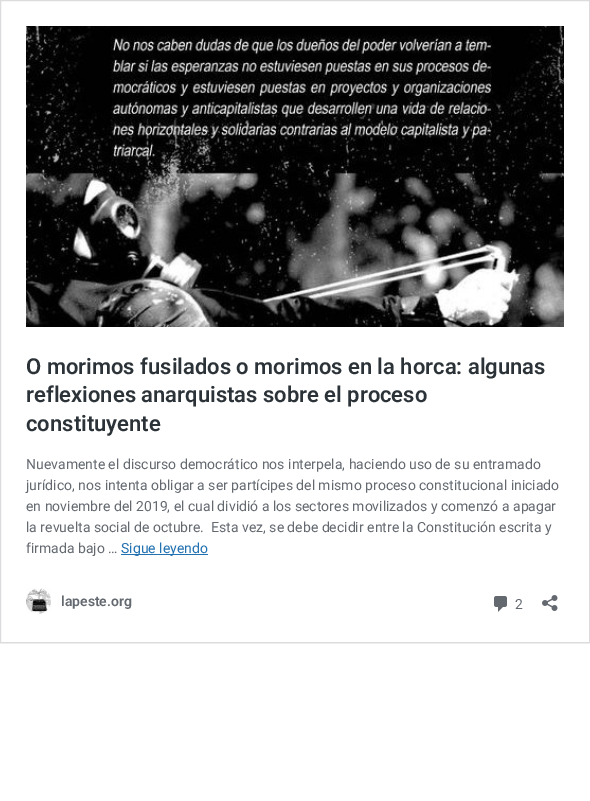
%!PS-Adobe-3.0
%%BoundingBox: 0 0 590 801
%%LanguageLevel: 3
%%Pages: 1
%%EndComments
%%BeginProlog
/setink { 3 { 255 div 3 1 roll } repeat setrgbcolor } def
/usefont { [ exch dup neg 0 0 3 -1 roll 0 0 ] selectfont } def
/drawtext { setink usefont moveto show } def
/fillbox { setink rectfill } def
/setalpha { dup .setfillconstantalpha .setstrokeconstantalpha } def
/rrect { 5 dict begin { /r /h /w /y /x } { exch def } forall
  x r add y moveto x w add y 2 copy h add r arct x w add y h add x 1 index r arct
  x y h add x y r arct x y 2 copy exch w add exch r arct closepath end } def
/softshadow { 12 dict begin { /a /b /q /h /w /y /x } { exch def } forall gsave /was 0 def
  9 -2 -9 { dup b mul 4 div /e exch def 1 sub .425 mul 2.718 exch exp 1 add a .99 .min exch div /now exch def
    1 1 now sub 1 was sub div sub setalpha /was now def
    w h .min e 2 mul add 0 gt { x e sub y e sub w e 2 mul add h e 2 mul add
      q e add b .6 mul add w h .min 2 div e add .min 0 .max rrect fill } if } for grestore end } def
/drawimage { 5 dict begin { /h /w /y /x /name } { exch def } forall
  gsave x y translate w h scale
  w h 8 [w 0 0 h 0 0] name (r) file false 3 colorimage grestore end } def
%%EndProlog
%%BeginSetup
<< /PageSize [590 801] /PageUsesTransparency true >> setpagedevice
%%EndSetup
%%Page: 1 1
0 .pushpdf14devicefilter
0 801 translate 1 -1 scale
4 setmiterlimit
0 0 590 801 255 255 255 fillbox
gsave
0 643 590 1 rectclip
0 0 0 setink
0 1 590 643 0 0.5 0.05 softshadow
grestore
220 220 222 setink
0.5 0.5 589 642 rectstroke
(assets/img1.rgb) 26 26 538 301 drawimage
(O morimos fusilados o morimos en la horca: algunas) 26 374 /Roboto-SemiBold 22 44 51 56 drawtext
(reflexiones anarquistas sobre el proceso) 26 402 /Roboto-SemiBold 22 44 51 56 drawtext
(constituyente) 26 431 /Roboto-SemiBold 22 44 51 56 drawtext
(Nuevamente el discurso democrático nos interpela, haciendo uso de su entramado) 26 469 /Roboto-Regular 14 100 105 112 drawtext
(jurídico, nos intenta obligar a ser partícipes del mismo proceso constitucional iniciado) 26 490 /Roboto-Regular 14 100 105 112 drawtext
(en noviembre del 2019, el cual dividió a los sectores movilizados y comenzó a apagar) 26 511 /Roboto-Regular 14 100 105 112 drawtext
(la revuelta social de octubre.  Esta vez, se debe decidir entre la Constitución escrita y) 26 532 /Roboto-Regular 14 100 105 112 drawtext
(firmada bajo …) 26 553 /Roboto-Regular 14 100 105 112 drawtext
121 554 87 1 34 113 177 fillbox
(Sigue leyendo) 121 553 /Roboto-Regular 14 34 113 177 drawtext
(assets/img2.rgb) 26 588 25 26 drawimage
(lapeste.org) 61 606 /Roboto-SemiBold 14 100 105 112 drawtext
(assets/img3.rgb) 494 596 13 16 drawimage
(2) 515 609 /Roboto-Regular 14 100 105 112 drawtext
(assets/img4.rgb) 542 595 16 16 drawimage
.poppdf14devicefilter showpage
%%EOF
